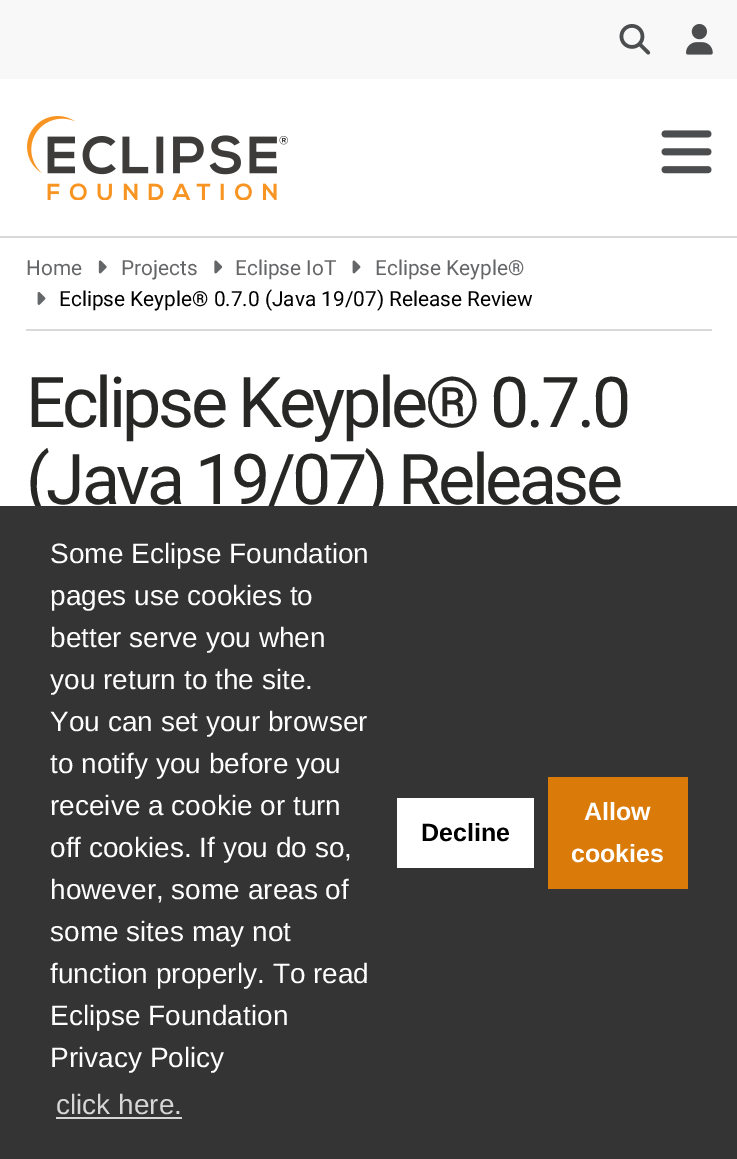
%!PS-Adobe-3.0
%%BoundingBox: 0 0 737 1159
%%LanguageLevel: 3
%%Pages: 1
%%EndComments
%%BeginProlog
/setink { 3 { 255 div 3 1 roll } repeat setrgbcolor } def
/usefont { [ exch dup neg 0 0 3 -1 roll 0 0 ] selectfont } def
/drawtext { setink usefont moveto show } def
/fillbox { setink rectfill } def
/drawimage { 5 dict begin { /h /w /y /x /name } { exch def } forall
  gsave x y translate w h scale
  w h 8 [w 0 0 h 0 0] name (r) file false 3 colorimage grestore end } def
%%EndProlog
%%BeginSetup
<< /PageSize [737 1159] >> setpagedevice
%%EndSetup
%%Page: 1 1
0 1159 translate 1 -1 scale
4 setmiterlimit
0 0 737 1159 255 255 255 fillbox
0 0 737 79 248 248 248 fillbox
(assets/img1.rgb) 619 24 32 31 drawimage
(assets/img2.rgb) 686 24 27 31 drawimage
0 236 737 2 217 217 217 fillbox
(assets/img3.rgb) 27 116 261 84 drawimage
(assets/img4.rgb) 661 130 51 44 drawimage
26 329 686 2 217 217 217 fillbox
(Home) 26 275 /Roboto-Regular 20.8 101 102 104 drawtext
(assets/img5.rgb) 98 260 9 14 drawimage
(Projects) 121 275 /Roboto-Regular 20.8 101 102 104 drawtext
(assets/img6.rgb) 214 260 9 14 drawimage
(Eclipse IoT) 235 275 /Roboto-Regular 20.8 101 102 104 drawtext
(assets/img7.rgb) 352 260 9 14 drawimage
(Eclipse Keyple®) 375 275 /Roboto-Regular 20.8 101 102 104 drawtext
(assets/img8.rgb) 37 292 9 13 drawimage
(Eclipse Keyple® 0.7.0 \(Java 19/07\) Release Review) 59 306 /Roboto-Regular 20.8 0 0 0 drawtext
/Roboto-Regular 70 usefont
39 39 38 setink
26 427 moveto -3.5 0 (Eclipse Keyple® 0.7.0) ashow
26 504 moveto -3.5 0 (\(Java 19/07\) Release) ashow
0 506 737 653 53 52 52 fillbox
(Some Eclipse Foundation) 50 563 /LiberationSans-Regular 28 255 255 255 drawtext
(pages use cookies to) 50 605 /LiberationSans-Regular 28 255 255 255 drawtext
(better serve you when) 50 647 /LiberationSans-Regular 28 255 255 255 drawtext
(you return to the site.) 50 689 /LiberationSans-Regular 28 255 255 255 drawtext
(You can set your browser) 50 731 /LiberationSans-Regular 28 255 255 255 drawtext
(to notify you before you) 50 773 /LiberationSans-Regular 28 255 255 255 drawtext
(receive a cookie or turn) 50 815 /LiberationSans-Regular 28 255 255 255 drawtext
(off cookies. If you do so,) 50 857 /LiberationSans-Regular 28 255 255 255 drawtext
(however, some areas of) 50 899 /LiberationSans-Regular 28 255 255 255 drawtext
(some sites may not) 50 941 /LiberationSans-Regular 28 255 255 255 drawtext
(function properly. To read) 50 983 /LiberationSans-Regular 28 255 255 255 drawtext
(Eclipse Foundation) 50 1025 /LiberationSans-Regular 28 255 255 255 drawtext
(Privacy Policy) 50 1067 /LiberationSans-Regular 28 255 255 255 drawtext
(click here.) 56 1114 /LiberationSans-Regular 28 215 214 214 drawtext
56 1117 126 2 215 214 214 fillbox
397 798 137 70 255 255 255 fillbox
(Decline) 421 841 /LiberationSans-Bold 25 0 0 0 drawtext
548 777 140 112 218 122 8 fillbox
(Allow) 584 820 /LiberationSans-Bold 25 255 255 255 drawtext
(cookies) 571 862 /LiberationSans-Bold 25 255 255 255 drawtext
showpage
%%EOF
